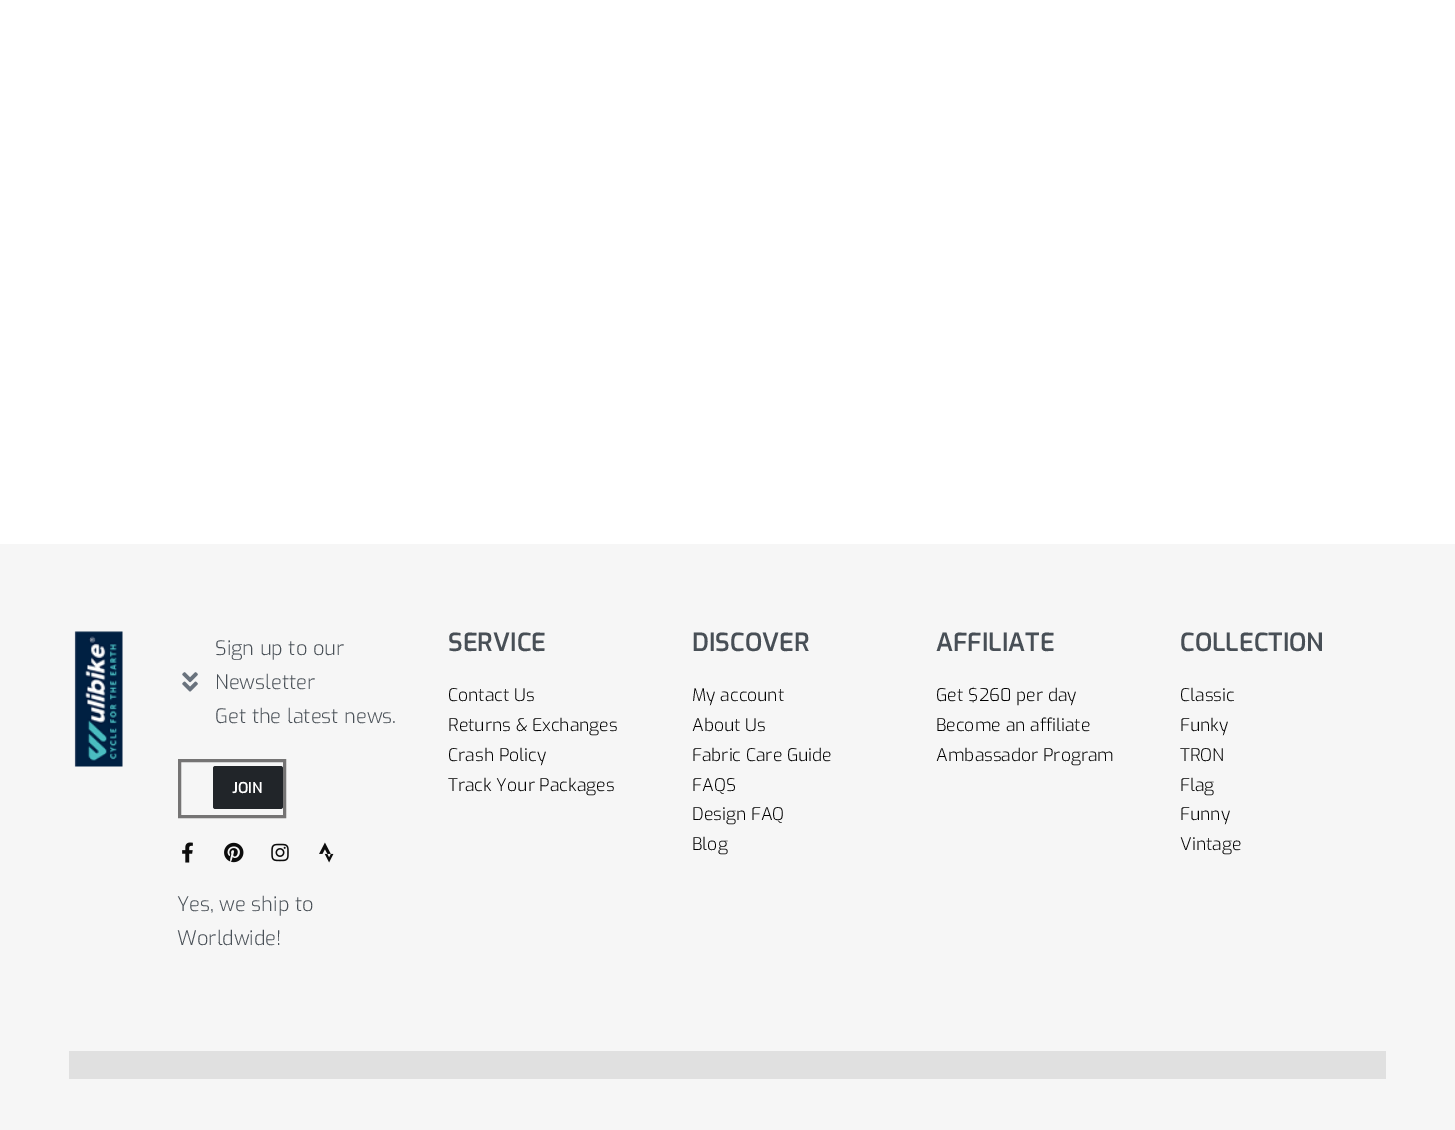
%!PS-Adobe-3.0
%%BoundingBox: 0 0 1455 1130
%%LanguageLevel: 3
%%Pages: 1
%%EndComments
%%BeginProlog
/setink { 3 { 255 div 3 1 roll } repeat setrgbcolor } def
/usefont { [ exch dup neg 0 0 3 -1 roll 0 0 ] selectfont } def
/drawtext { setink usefont moveto show } def
/fillbox { setink rectfill } def
/rrect { 5 dict begin { /r /h /w /y /x } { exch def } forall
  x r add y moveto x w add y 2 copy h add r arct x w add y h add x 1 index r arct
  x y h add x y r arct x y 2 copy exch w add exch r arct closepath end } def
/drawimage { 5 dict begin { /h /w /y /x /name } { exch def } forall
  gsave x y translate w h scale
  w h 8 [w 0 0 h 0 0] name (r) file false 3 colorimage grestore end } def
%%EndProlog
%%BeginSetup
<< /PageSize [1455 1130] >> setpagedevice
%%EndSetup
%%Page: 1 1
0 1130 translate 1 -1 scale
4 setmiterlimit
0 0 1455 1130 255 255 255 fillbox
0 544 1455 586 246 246 246 fillbox
(assets/img1.rgb) 74 631 49 136 drawimage
(assets/img2.rgb) 182 672 16 20 drawimage
(Sign up to our) 215 655 /Exo-Light 20 72 79 86 drawtext
(Newsletter) 215 689 /Exo-Light 20 72 79 86 drawtext
(Get the latest news.) 215 723 /Exo-Light 20 72 79 86 drawtext
117 116 116 setink
3 setlinewidth
179.5 760.5 105 56 rectstroke
33 37 41 setink
213 766 70 43 2.5 rrect fill
(JOIN) 232 793 /Exo-SemiBold 15 255 255 255 drawtext
(assets/img3.rgb) 182 842 11 21 drawimage
(assets/img4.rgb) 224 842 20 21 drawimage
(assets/img5.rgb) 271 843 18 19 drawimage
(assets/img6.rgb) 319 842 15 21 drawimage
(Yes, we ship to) 177 911 /Exo-Light 20 72 79 86 drawtext
(Worldwide!) 177 945 /Exo-Light 20 72 79 86 drawtext
(SERVICE) 448 651 /Exo-SemiBold 25 72 79 86 drawtext
(Contact Us) 448 701 /Exo-Light 17.5 0 0 0 drawtext
(Returns & Exchanges) 448 731 /Exo-Light 17.5 0 0 0 drawtext
(Crash Policy) 448 761 /Exo-Light 17.5 0 0 0 drawtext
(Track Your Packages) 448 791 /Exo-Light 17.5 0 0 0 drawtext
(DISCOVER) 692 651 /Exo-SemiBold 25 72 79 86 drawtext
(My account) 692 701 /Exo-Light 17.5 0 0 0 drawtext
(About Us) 692 731 /Exo-Light 17.5 0 0 0 drawtext
(Fabric Care Guide) 692 761 /Exo-Light 17.5 0 0 0 drawtext
(FAQS) 692 791 /Exo-Light 17.5 0 0 0 drawtext
(Design FAQ) 692 820 /Exo-Light 17.5 0 0 0 drawtext
(Blog) 692 850 /Exo-Light 17.5 0 0 0 drawtext
(AFFILIATE) 936 651 /Exo-SemiBold 25 72 79 86 drawtext
(Get $260 per day) 936 701 /Exo-Light 17.5 0 0 0 drawtext
(Become an affiliate) 936 731 /Exo-Light 17.5 0 0 0 drawtext
(Ambassador Program) 936 761 /Exo-Light 17.5 0 0 0 drawtext
(COLLECTION) 1180 651 /Exo-SemiBold 25 72 79 86 drawtext
(Classic) 1180 701 /Exo-Light 17.5 0 0 0 drawtext
(Funky) 1180 731 /Exo-Light 17.5 0 0 0 drawtext
(TRON) 1180 761 /Exo-Light 17.5 0 0 0 drawtext
(Flag) 1180 791 /Exo-Light 17.5 0 0 0 drawtext
(Funny) 1180 820 /Exo-Light 17.5 0 0 0 drawtext
(Vintage) 1180 850 /Exo-Light 17.5 0 0 0 drawtext
69 1051 1317 28 224 224 224 fillbox
showpage
%%EOF
